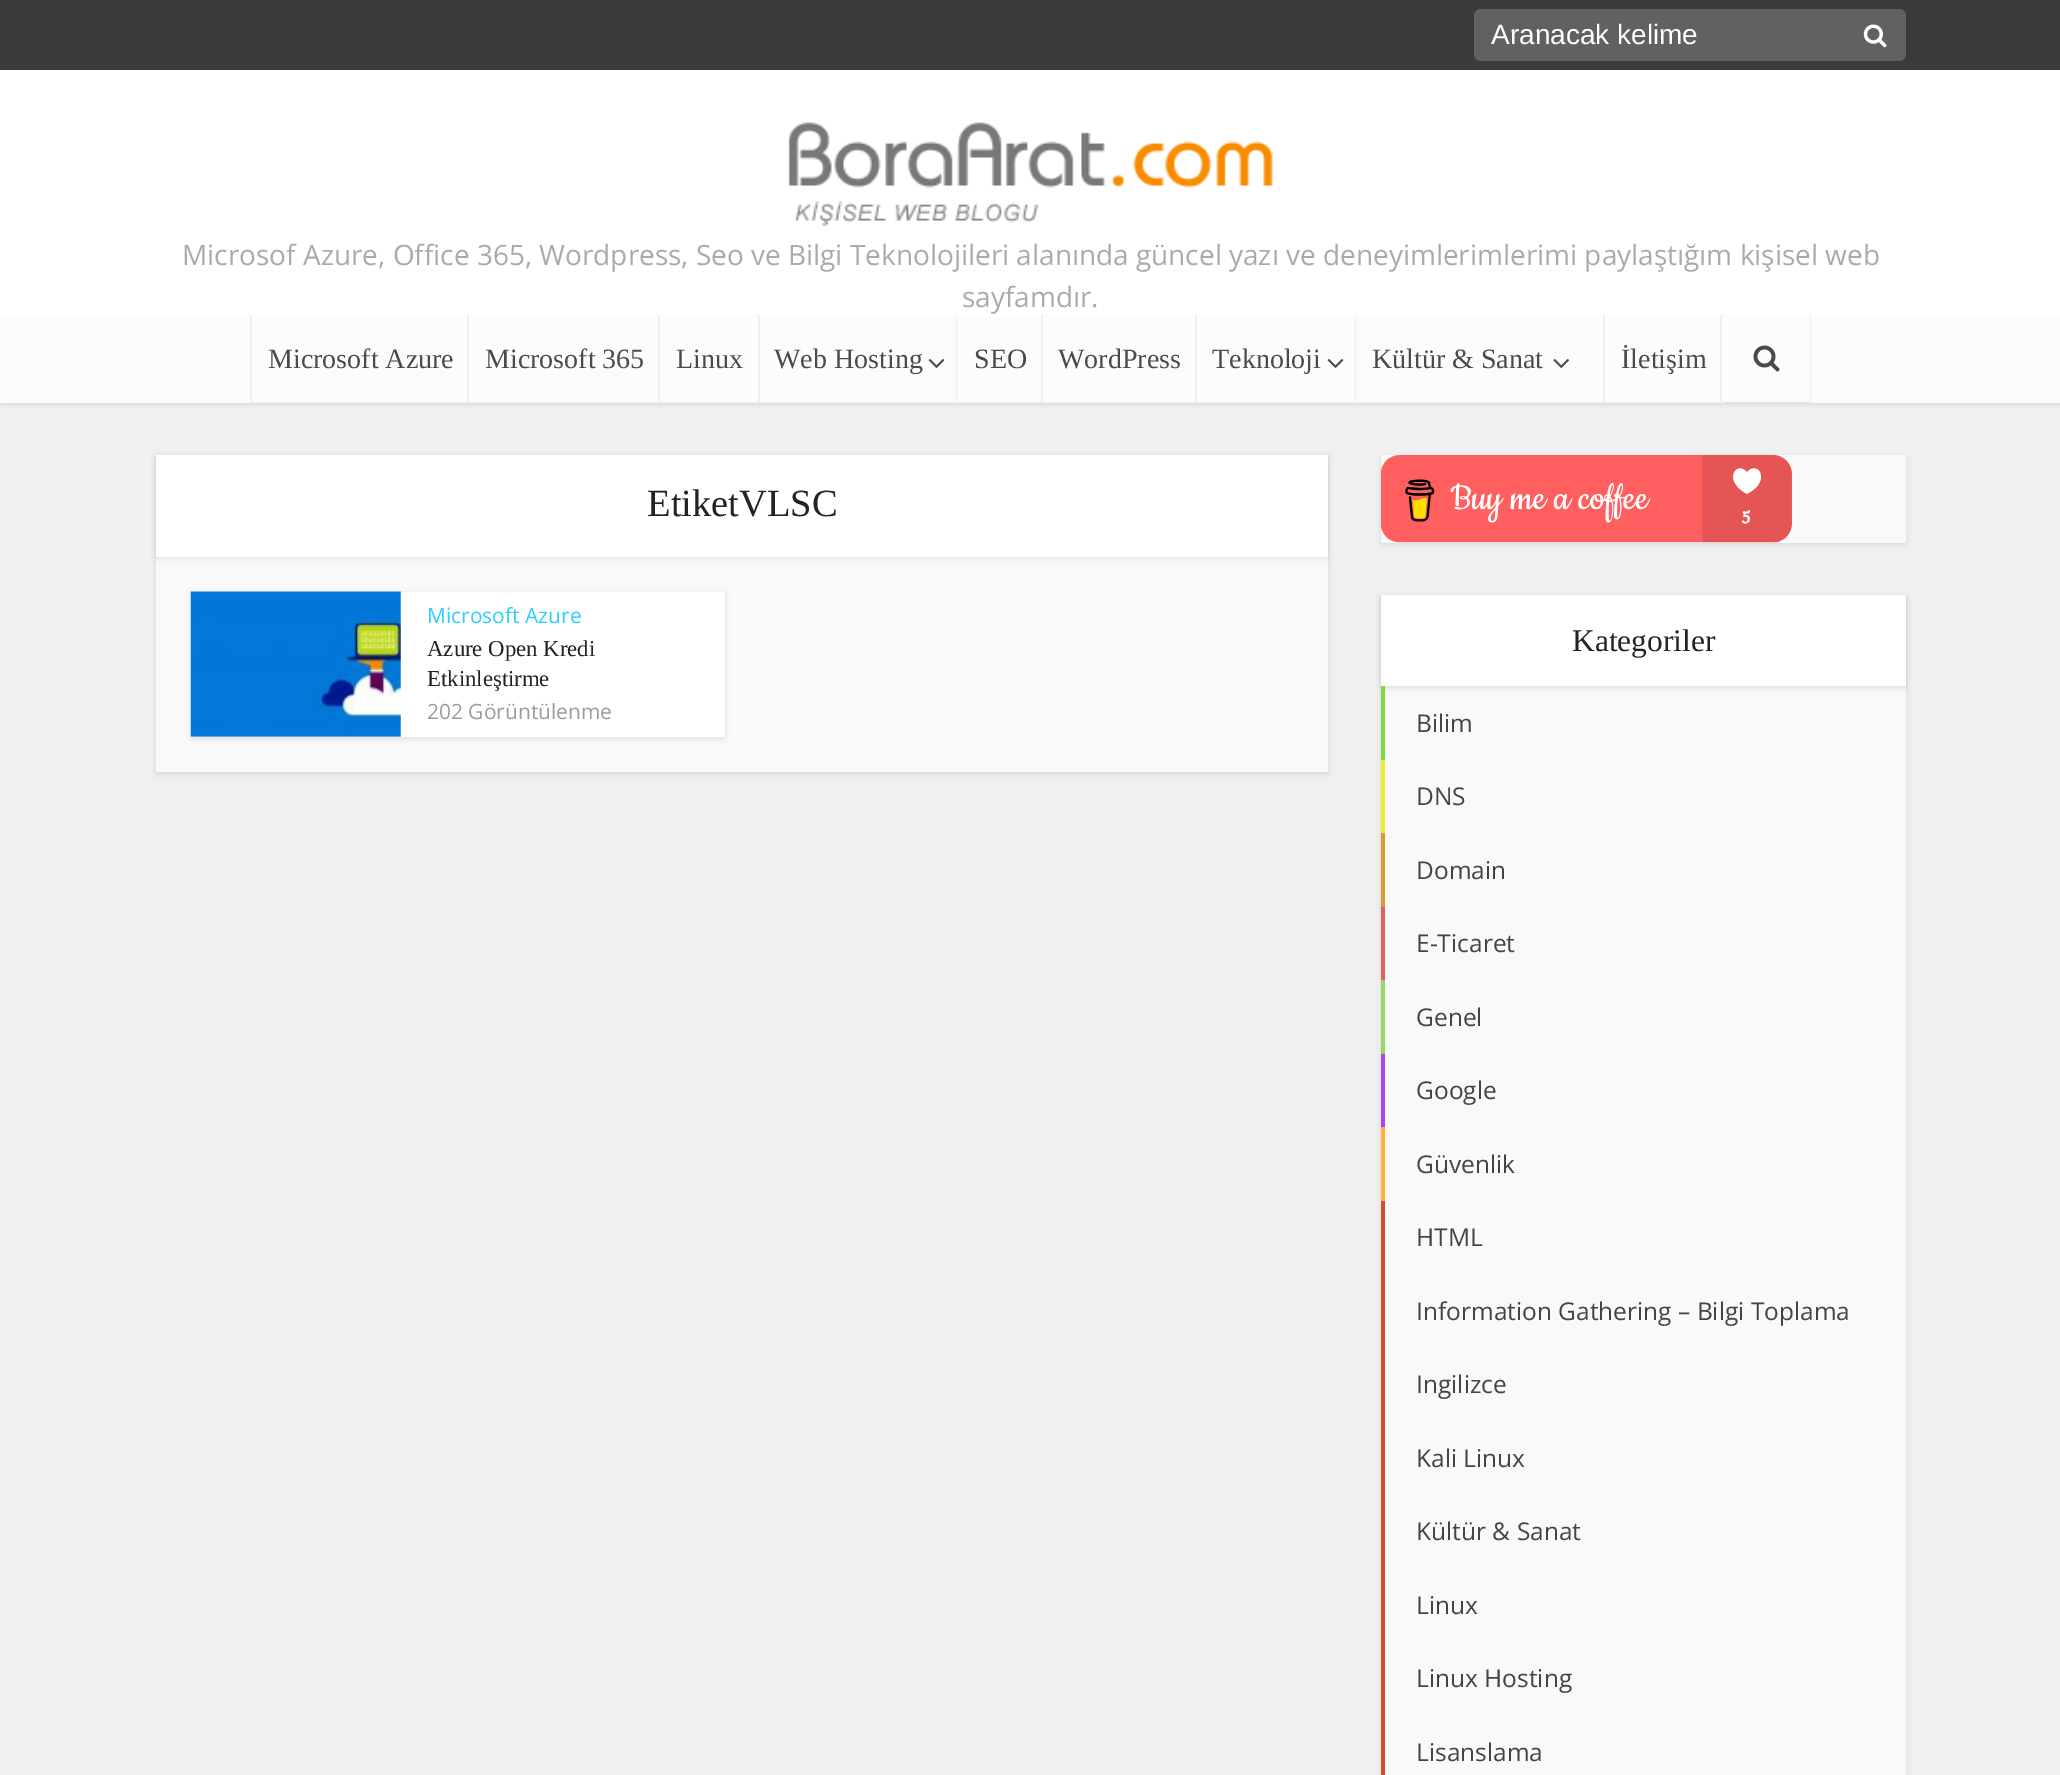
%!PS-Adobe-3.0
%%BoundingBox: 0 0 2060 1775
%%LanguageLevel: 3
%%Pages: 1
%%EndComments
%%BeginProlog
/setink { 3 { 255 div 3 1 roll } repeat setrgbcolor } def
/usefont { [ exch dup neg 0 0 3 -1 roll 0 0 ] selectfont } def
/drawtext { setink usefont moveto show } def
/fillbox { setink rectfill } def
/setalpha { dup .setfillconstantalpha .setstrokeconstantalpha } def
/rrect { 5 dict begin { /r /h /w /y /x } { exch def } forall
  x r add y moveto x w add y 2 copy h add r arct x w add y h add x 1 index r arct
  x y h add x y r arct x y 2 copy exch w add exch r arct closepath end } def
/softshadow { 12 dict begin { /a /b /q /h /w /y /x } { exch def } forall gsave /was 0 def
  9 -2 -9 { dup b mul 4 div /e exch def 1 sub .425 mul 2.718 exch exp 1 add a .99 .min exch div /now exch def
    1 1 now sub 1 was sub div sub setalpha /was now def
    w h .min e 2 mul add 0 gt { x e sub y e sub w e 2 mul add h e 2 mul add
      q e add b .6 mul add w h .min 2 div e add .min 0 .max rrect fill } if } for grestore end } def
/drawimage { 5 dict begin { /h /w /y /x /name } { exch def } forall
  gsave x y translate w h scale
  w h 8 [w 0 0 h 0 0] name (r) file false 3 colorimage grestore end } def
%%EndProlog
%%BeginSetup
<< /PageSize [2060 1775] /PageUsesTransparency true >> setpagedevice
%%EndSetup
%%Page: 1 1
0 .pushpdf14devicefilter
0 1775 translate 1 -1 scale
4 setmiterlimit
0 0 2060 1775 240 240 240 fillbox
0 0 0 setink
0 2 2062 402 0 2.5 0.1 softshadow
0 70 2060 245 255 255 255 fillbox
0 0 2060 70 58 58 58 fillbox
97 97 97 setink
1474 9 432 52 7 rrect fill
(Aranacak kelime) 1491 44 /LiberationSans-Regular 28 255 255 255 drawtext
(assets/img1.rgb) 1863 24 24 24 drawimage
(assets/img2.rgb) 788 122 485 104 drawimage
(Microsof Azure, Office 365, Wordpress, Seo ve Bilgi Teknolojileri alanında güncel yazı ve deneyimlerimlerimi paylaştığım kişisel web) 182 265 /OpenSans-Regular 28 170 170 170 drawtext
(sayfamdır.) 962 307 /OpenSans-Regular 28 170 170 170 drawtext
0 315 2060 88 252 252 252 fillbox
239 239 239 setink
250 315 moveto 250 403 lineto 467 403 lineto 467 402 lineto 252 402 lineto 252 315 lineto closepath fill
(Microsoft Azure) 268 368 /LiberationSerif-Regular 28 74 74 74 drawtext
239 239 239 setink
467 315 moveto 467 403 lineto 658 403 lineto 658 402 lineto 469 402 lineto 469 315 lineto closepath fill
(Microsoft 365) 485 368 /LiberationSerif-Regular 28 74 74 74 drawtext
239 239 239 setink
658 315 moveto 658 403 lineto 758 403 lineto 758 402 lineto 660 402 lineto 660 315 lineto closepath fill
(Linux) 676 368 /LiberationSerif-Regular 28 74 74 74 drawtext
239 239 239 setink
758 315 moveto 758 403 lineto 956 403 lineto 956 402 lineto 760 402 lineto 760 315 lineto closepath fill
(Web Hosting) 774 368 /LiberationSerif-Regular 28 74 74 74 drawtext
(assets/img3.rgb) 928 359 17 9 drawimage
239 239 239 setink
956 315 moveto 956 403 lineto 1041 403 lineto 1041 402 lineto 957 402 lineto 957 315 lineto closepath fill
(SEO) 974 368 /LiberationSerif-Regular 28 74 74 74 drawtext
239 239 239 setink
1041 315 moveto 1041 403 lineto 1195 403 lineto 1195 402 lineto 1043 402 lineto 1043 315 lineto closepath fill
(WordPress) 1058 368 /LiberationSerif-Regular 28 74 74 74 drawtext
239 239 239 setink
1195 315 moveto 1195 403 lineto 1355 403 lineto 1355 402 lineto 1197 402 lineto 1197 315 lineto closepath fill
(Teknoloji) 1212 368 /LiberationSerif-Regular 28 74 74 74 drawtext
(assets/img3.rgb) 1327 359 17 9 drawimage
239 239 239 setink
1355 315 moveto 1355 403 lineto 1603 403 lineto 1603 402 lineto 1356 402 lineto 1356 315 lineto closepath fill
(Kültür & Sanat) 1372 368 /LiberationSerif-Regular 28 74 74 74 drawtext
(assets/img4.rgb) 1553 359 16 9 drawimage
239 239 239 setink
1603 315 moveto 1603 403 lineto 1720 403 lineto 1720 402 lineto 1605 402 lineto 1605 315 lineto closepath fill
(İletişim) 1621 368 /LiberationSerif-Regular 28 74 74 74 drawtext
239 239 239 setink
1724 402 moveto 1724 403 lineto 1811 403 lineto 1811 315 lineto 1810 315 lineto 1810 402 lineto closepath fill
0.05 setalpha
0 0 0 setink
1720 315 moveto 1720 403 lineto 1808 403 lineto 1808 402 lineto 1722 402 lineto 1722 315 lineto closepath fill
1 setalpha
(assets/img5.rgb) 1753 345 27 27 drawimage
156 457 1172 317 0 2.5 0.1 softshadow
156 557 1172 215 249 249 249 fillbox
0 0 0 setink
156 457 1172 101 0 2.5 0.1 softshadow
156 455 1172 102 255 255 255 fillbox
(EtiketVLSC) 647 516 /LiberationSerif-Regular 38.5 35 35 35 drawtext
0 0 0 setink
191 593 534 146 0 2.5 0.1 softshadow
191 592 534 145 255 255 255 fillbox
(assets/img6.rgb) 190 591 211 146 drawimage
(Microsoft Azure) 427 623 /OpenSans-Regular 21 45 206 255 drawtext
(Azure Open Kredi) 427 656 /LiberationSerif-Regular 22.75 35 35 35 drawtext
(Etkinleştirme) 427 686 /LiberationSerif-Regular 22.75 35 35 35 drawtext
(202 Görüntülenme) 427 719 /OpenSans-Regular 21 155 155 155 drawtext
0 0 0 setink
1381 457 525 87 0 2.5 0.1 softshadow
1381 455 525 88 249 249 249 fillbox
(assets/img7.rgb) 1381 455 411 88 drawimage
0 0 0 setink
1381 597 525 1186 0 2.5 0.1 softshadow
1385 686 521 1089 249 249 249 fillbox
0 0 0 setink
1381 597 525 91 0 2.5 0.1 softshadow
1381 595 525 91 255 255 255 fillbox
(Kategoriler) 1572 651 /LiberationSerif-Regular 31.5 35 35 35 drawtext
1381 686 4 74 129 215 66 fillbox
(Bilim) 1416 732 /OpenSans-Regular 24.5 68 68 68 drawtext
1381 760 4 73 237 237 49 fillbox
(DNS) 1416 805 /OpenSans-Regular 24.5 68 68 68 drawtext
1381 833 4 74 221 153 51 fillbox
(Domain) 1416 879 /OpenSans-Regular 24.5 68 68 68 drawtext
1381 907 4 73 221 99 99 fillbox
(E-Ticaret) 1416 952 /OpenSans-Regular 24.5 68 68 68 drawtext
1381 980 4 74 150 214 104 fillbox
(Genel) 1416 1026 /OpenSans-Regular 24.5 68 68 68 drawtext
1381 1054 4 73 170 71 232 fillbox
(Google) 1416 1099 /OpenSans-Regular 24.5 68 68 68 drawtext
1381 1127 4 74 255 176 58 fillbox
(Güvenlik) 1416 1173 /OpenSans-Regular 24.5 68 68 68 drawtext
1381 1201 4 574 207 77 53 fillbox
(HTML) 1416 1246 /OpenSans-Regular 24.5 68 68 68 drawtext
(Information Gathering – Bilgi Toplama) 1416 1320 /OpenSans-Regular 24.5 68 68 68 drawtext
(Ingilizce) 1416 1393 /OpenSans-Regular 24.5 68 68 68 drawtext
(Kali Linux) 1416 1467 /OpenSans-Regular 24.5 68 68 68 drawtext
(Kültür & Sanat) 1416 1540 /OpenSans-Regular 24.5 68 68 68 drawtext
(Linux) 1416 1614 /OpenSans-Regular 24.5 68 68 68 drawtext
(Linux Hosting) 1416 1687 /OpenSans-Regular 24.5 68 68 68 drawtext
(Lisanslama) 1416 1761 /OpenSans-Regular 24.5 68 68 68 drawtext
.poppdf14devicefilter showpage
%%EOF
